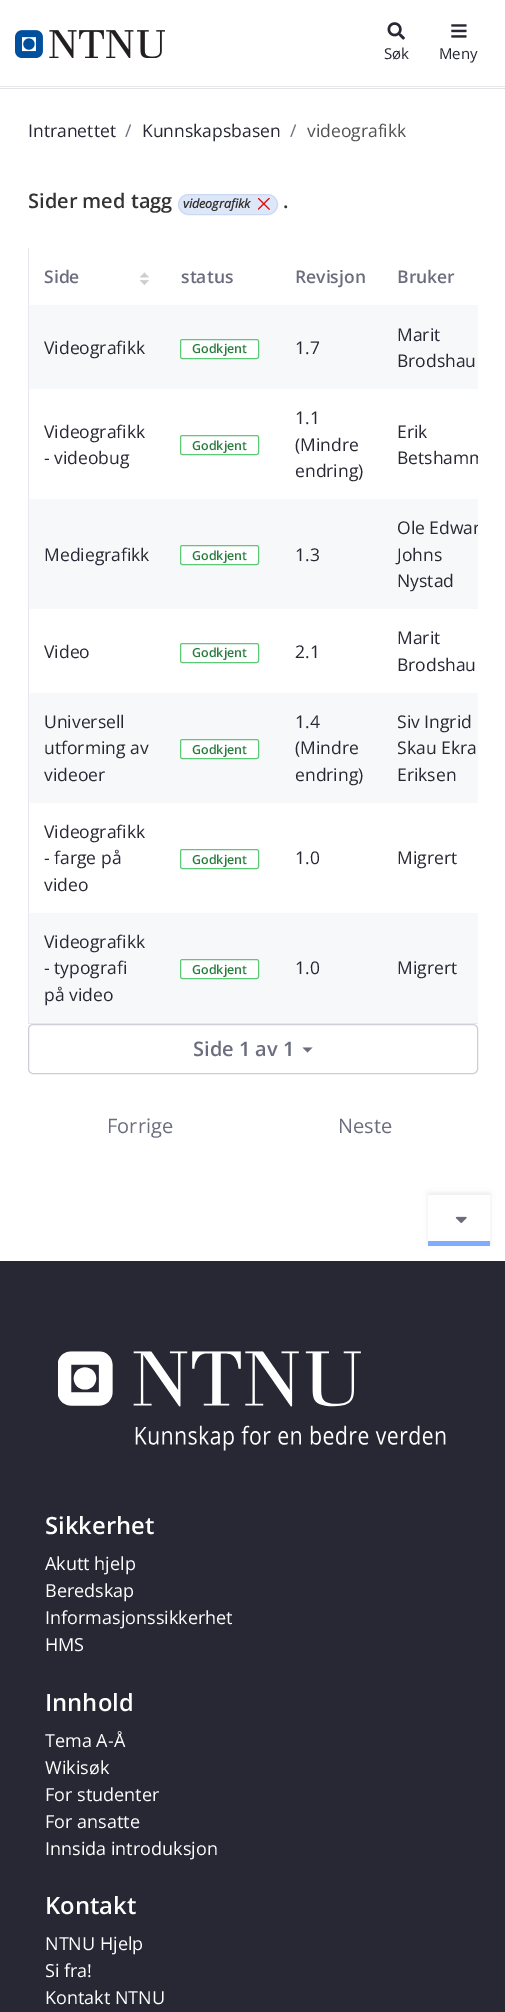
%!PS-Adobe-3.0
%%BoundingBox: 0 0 505 2012
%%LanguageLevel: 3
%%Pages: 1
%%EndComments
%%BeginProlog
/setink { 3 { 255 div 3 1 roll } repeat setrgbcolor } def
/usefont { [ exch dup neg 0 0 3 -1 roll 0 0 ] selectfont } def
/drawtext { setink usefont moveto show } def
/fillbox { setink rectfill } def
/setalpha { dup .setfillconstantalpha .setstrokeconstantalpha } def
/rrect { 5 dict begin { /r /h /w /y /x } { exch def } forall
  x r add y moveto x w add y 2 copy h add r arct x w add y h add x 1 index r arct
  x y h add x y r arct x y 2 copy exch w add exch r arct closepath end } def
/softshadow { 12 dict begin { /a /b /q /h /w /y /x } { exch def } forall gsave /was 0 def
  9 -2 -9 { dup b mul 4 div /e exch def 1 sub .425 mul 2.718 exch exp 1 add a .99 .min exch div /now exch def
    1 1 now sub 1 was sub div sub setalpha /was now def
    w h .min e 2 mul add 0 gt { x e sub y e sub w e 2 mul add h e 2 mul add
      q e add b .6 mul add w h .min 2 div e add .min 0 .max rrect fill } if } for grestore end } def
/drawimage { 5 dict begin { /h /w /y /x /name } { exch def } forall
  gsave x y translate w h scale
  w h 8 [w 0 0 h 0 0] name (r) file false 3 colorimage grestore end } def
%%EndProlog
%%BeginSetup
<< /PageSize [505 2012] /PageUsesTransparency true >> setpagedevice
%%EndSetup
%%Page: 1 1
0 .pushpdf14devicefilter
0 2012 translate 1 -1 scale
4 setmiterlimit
0 0 505 2012 255 255 255 fillbox
0 88 505 1 228 228 228 fillbox
0 86 505 1 231 231 237 fillbox
(assets/img1.rgb) 15 30 150 28 drawimage
(assets/img2.rgb) 387 22 18 18 drawimage
(Søk) 384 59 /OpenSans-Regular 15 39 40 51 drawtext
(assets/img3.rgb) 451 24 16 14 drawimage
(Meny) 439 59 /OpenSans-Regular 15 39 40 51 drawtext
(Intranettet) 28 137 /OpenSans-Regular 17.5 39 40 51 drawtext
(/) 125 137 /OpenSans-Regular 17.5 107 108 126 drawtext
(Kunnskapsbasen) 142 137 /OpenSans-Regular 17.5 39 40 51 drawtext
(/) 290 137 /OpenSans-Regular 17.5 107 108 126 drawtext
(videografikk) 307 137 /OpenSans-Regular 17.5 82 82 82 drawtext
(Sider med tagg) 28 208 /OpenSans-SemiBold 20 51 51 51 drawtext
222 231 248 setink
178.5 194.5 99 20 10 rrect gsave fill grestore
202 216 243 setink
stroke
(videografikk) 183 208 /OpenSans-BoldItalic 12.5 51 51 51 drawtext
(assets/img4.rgb) 258 198 12 12 drawimage
(.) 283 208 /OpenSans-SemiBold 20 51 51 51 drawtext
28 1023 450 1 231 231 237 fillbox
28 248 1 776 231 231 237 fillbox
(Side) 44 283 /OpenSans-SemiBold 17.5 107 108 126 drawtext
(assets/img5.rgb) 140 272 9 13 drawimage
(status) 181 283 /OpenSans-SemiBold 17.5 107 108 126 drawtext
(Revisjon) 295 283 /OpenSans-SemiBold 17.5 107 108 126 drawtext
(Bruker) 397 283 /OpenSans-SemiBold 17.5 107 108 126 drawtext
29 305 449 84 247 248 249 fillbox
(Videografikk) 44 354 /OpenSans-Regular 17.5 39 40 51 drawtext
255 255 255 setink
180.5 339.5 78 19 2 rrect gsave fill grestore
90 202 118 setink
stroke
(Godkjent) 192 353 /OpenSans-SemiBold 12.5 40 125 61 drawtext
(1.7) 295 354 /OpenSans-Regular 17.5 39 40 51 drawtext
(Marit) 397 341 /OpenSans-Regular 17.5 39 40 51 drawtext
(Brodshau) 397 367 /OpenSans-Regular 17.5 39 40 51 drawtext
(Videografikk) 44 438 /OpenSans-Regular 17.5 39 40 51 drawtext
(- videobug) 44 464 /OpenSans-Regular 17.5 39 40 51 drawtext
90 202 118 setink
180.5 435.5 78 19 2 rrect stroke
(Godkjent) 192 450 /OpenSans-SemiBold 12.5 40 125 61 drawtext
(1.1) 295 424 /OpenSans-Regular 17.5 39 40 51 drawtext
(\(Mindre) 295 451 /OpenSans-Regular 17.5 39 40 51 drawtext
(endring\)) 295 477 /OpenSans-Regular 17.5 39 40 51 drawtext
(Erik) 397 438 /OpenSans-Regular 17.5 39 40 51 drawtext
gsave
28 248 450 946 rectclip
(Betshamm) 397 464 /OpenSans-Regular 17.5 39 40 51 drawtext
grestore
29 499 449 110 247 248 249 fillbox
(Mediegrafikk) 44 561 /OpenSans-Regular 17.5 39 40 51 drawtext
255 255 255 setink
180.5 545.5 78 19 2 rrect gsave fill grestore
90 202 118 setink
stroke
(Godkjent) 192 560 /OpenSans-SemiBold 12.5 40 125 61 drawtext
(1.3) 295 561 /OpenSans-Regular 17.5 39 40 51 drawtext
gsave
28 248 450 946 rectclip
(Ole Edwar) 397 534 /OpenSans-Regular 17.5 39 40 51 drawtext
grestore
(Johns) 397 561 /OpenSans-Regular 17.5 39 40 51 drawtext
(Nystad) 397 587 /OpenSans-Regular 17.5 39 40 51 drawtext
(Video) 44 658 /OpenSans-Regular 17.5 39 40 51 drawtext
90 202 118 setink
180.5 643.5 78 19 2 rrect stroke
(Godkjent) 192 657 /OpenSans-SemiBold 12.5 40 125 61 drawtext
(2.1) 295 658 /OpenSans-Regular 17.5 39 40 51 drawtext
(Marit) 397 644 /OpenSans-Regular 17.5 39 40 51 drawtext
(Brodshau) 397 671 /OpenSans-Regular 17.5 39 40 51 drawtext
29 693 449 110 247 248 249 fillbox
(Universell) 44 728 /OpenSans-Regular 17.5 39 40 51 drawtext
(utforming av) 44 754 /OpenSans-Regular 17.5 39 40 51 drawtext
(videoer) 44 781 /OpenSans-Regular 17.5 39 40 51 drawtext
255 255 255 setink
180.5 739.5 78 19 2 rrect gsave fill grestore
90 202 118 setink
stroke
(Godkjent) 192 754 /OpenSans-SemiBold 12.5 40 125 61 drawtext
(1.4) 295 728 /OpenSans-Regular 17.5 39 40 51 drawtext
(\(Mindre) 295 754 /OpenSans-Regular 17.5 39 40 51 drawtext
(endring\)) 295 781 /OpenSans-Regular 17.5 39 40 51 drawtext
(Siv Ingrid) 397 728 /OpenSans-Regular 17.5 39 40 51 drawtext
(Skau Ekra) 397 754 /OpenSans-Regular 17.5 39 40 51 drawtext
(Eriksen) 397 781 /OpenSans-Regular 17.5 39 40 51 drawtext
(Videografikk) 44 838 /OpenSans-Regular 17.5 39 40 51 drawtext
(- farge på) 44 864 /OpenSans-Regular 17.5 39 40 51 drawtext
(video) 44 891 /OpenSans-Regular 17.5 39 40 51 drawtext
90 202 118 setink
180.5 849.5 78 19 2 rrect stroke
(Godkjent) 192 864 /OpenSans-SemiBold 12.5 40 125 61 drawtext
(1.0) 295 864 /OpenSans-Regular 17.5 39 40 51 drawtext
(Migrert) 397 864 /OpenSans-Regular 17.5 39 40 51 drawtext
29 913 449 110 247 248 249 fillbox
(Videografikk) 44 948 /OpenSans-Regular 17.5 39 40 51 drawtext
(- typografi) 44 974 /OpenSans-Regular 17.5 39 40 51 drawtext
(på video) 44 1001 /OpenSans-Regular 17.5 39 40 51 drawtext
255 255 255 setink
180.5 959.5 78 19 2 rrect gsave fill grestore
90 202 118 setink
stroke
(Godkjent) 192 974 /OpenSans-SemiBold 12.5 40 125 61 drawtext
(1.0) 295 974 /OpenSans-Regular 17.5 39 40 51 drawtext
(Migrert) 397 974 /OpenSans-Regular 17.5 39 40 51 drawtext
205 206 217 setink
28.5 1024.5 449 49 4.5 rrect stroke
(Side 1 av 1) 193 1056 /OpenSans-SemiBold 20 107 108 126 drawtext
302.5 1047.5 moveto 312.5 1047.5 lineto 307.5 1052.5 lineto closepath fill
(Forrige) 107 1133 /OpenSans-Regular 20 107 108 126 drawtext
(Neste) 338 1133 /OpenSans-Regular 20 107 108 126 drawtext
gsave
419 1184 moveto 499 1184 lineto 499 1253 lineto 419 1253 lineto closepath 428 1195 moveto 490 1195 lineto 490 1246 lineto 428 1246 lineto closepath eoclip newpath
0 0 0 setink
428 1193 62 51 0 2.5 0.07 softshadow
grestore
(assets/img6.rgb) 455 1216 12 8 drawimage
428 1241 62 5 128 172 255 fillbox
0 1261 505 751 39 40 52 fillbox
(assets/img7.rgb) 58 1351 388 100 drawimage
(Sikkerhet) 45 1534 /OpenSans-SemiBold 23.75 255 255 255 drawtext
(Akutt hjelp) 45 1570 /OpenSans-Regular 18 255 255 255 drawtext
(Beredskap) 45 1597 /OpenSans-Regular 18 255 255 255 drawtext
(Informasjonssikkerhet) 45 1624 /OpenSans-Regular 18 255 255 255 drawtext
(HMS) 45 1651 /OpenSans-Regular 18 255 255 255 drawtext
(Innhold) 45 1711 /OpenSans-SemiBold 23.75 255 255 255 drawtext
(Tema A-Å) 45 1747 /OpenSans-Regular 18 255 255 255 drawtext
(Wikisøk) 45 1774 /OpenSans-Regular 18 255 255 255 drawtext
(For studenter) 45 1801 /OpenSans-Regular 18 255 255 255 drawtext
(For ansatte) 45 1828 /OpenSans-Regular 18 255 255 255 drawtext
(Innsida introduksjon) 45 1855 /OpenSans-Regular 18 255 255 255 drawtext
(Kontakt) 45 1914 /OpenSans-SemiBold 23.75 255 255 255 drawtext
(NTNU Hjelp) 45 1950 /OpenSans-Regular 18 255 255 255 drawtext
(Si fra!) 45 1977 /OpenSans-Regular 18 255 255 255 drawtext
(Kontakt NTNU) 45 2004 /OpenSans-Regular 18 255 255 255 drawtext
.poppdf14devicefilter showpage
%%EOF
